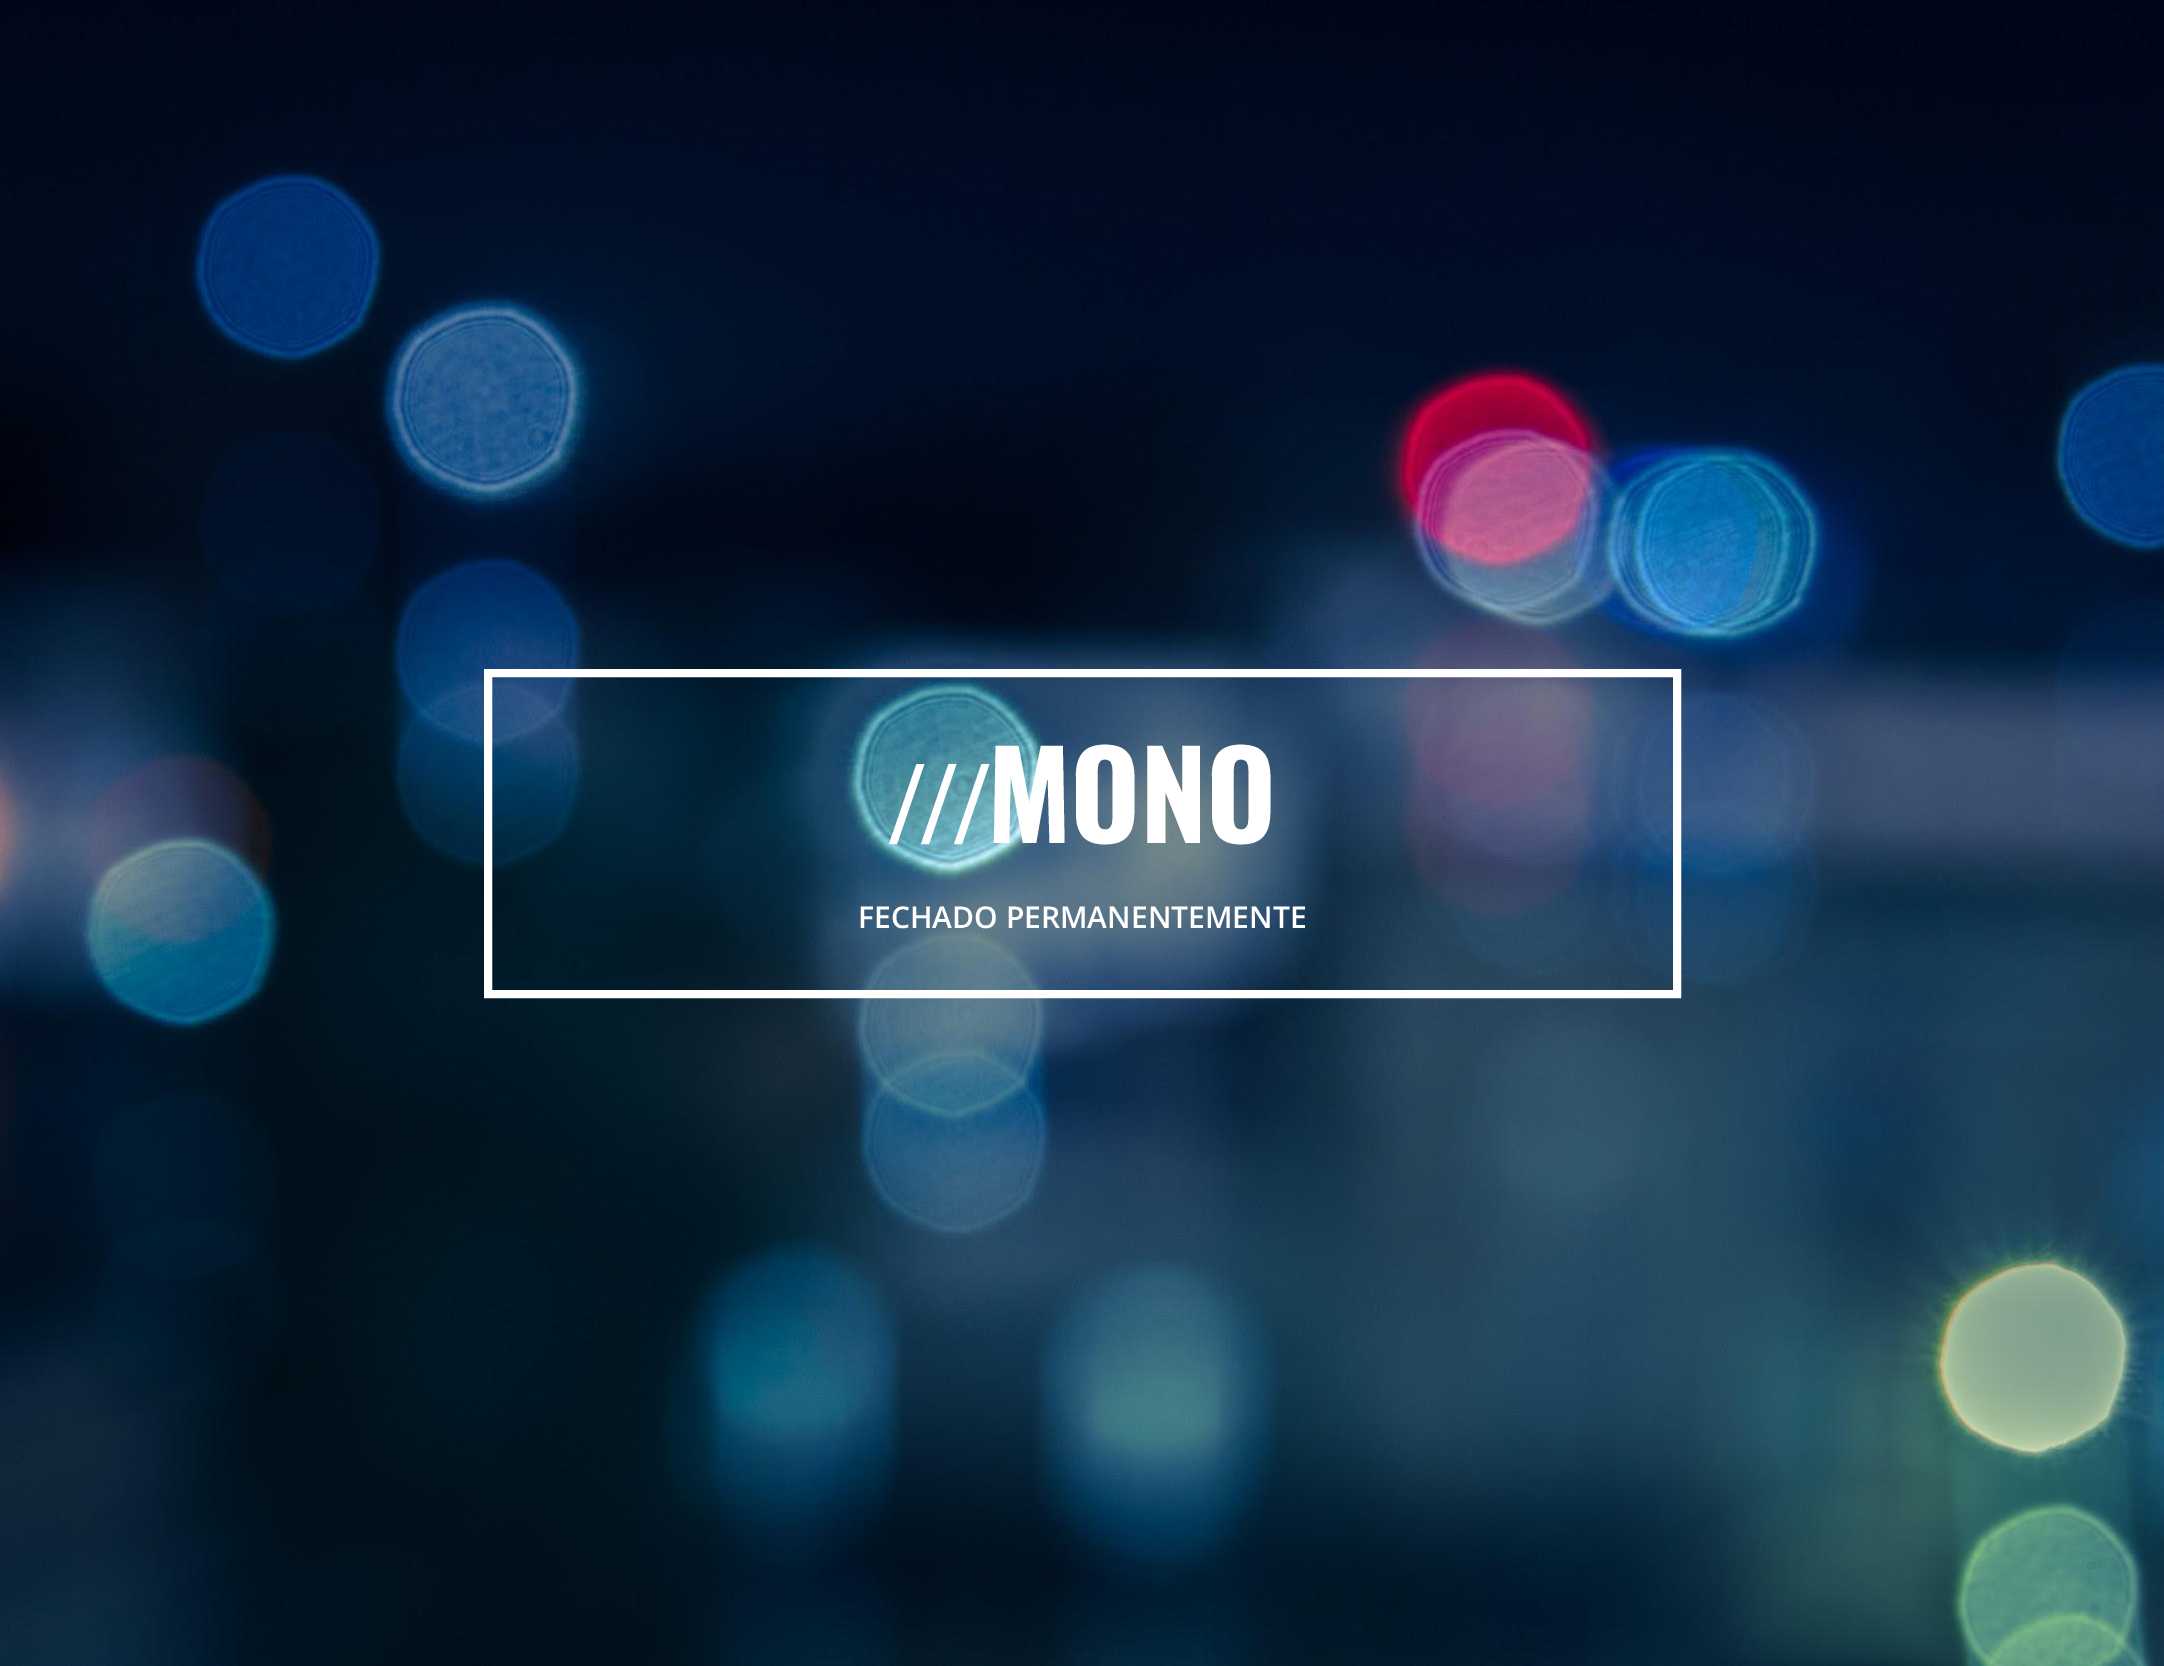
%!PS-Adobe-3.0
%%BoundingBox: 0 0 2164 1666
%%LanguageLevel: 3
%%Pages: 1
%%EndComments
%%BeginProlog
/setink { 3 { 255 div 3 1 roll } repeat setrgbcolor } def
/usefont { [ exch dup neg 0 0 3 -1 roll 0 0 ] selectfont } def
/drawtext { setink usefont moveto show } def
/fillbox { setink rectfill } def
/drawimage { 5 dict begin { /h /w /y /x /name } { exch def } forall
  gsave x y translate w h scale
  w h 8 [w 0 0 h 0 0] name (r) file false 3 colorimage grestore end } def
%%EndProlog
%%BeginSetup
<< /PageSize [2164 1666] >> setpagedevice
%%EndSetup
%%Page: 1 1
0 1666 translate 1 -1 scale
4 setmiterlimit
0 0 2164 1666 255 255 255 fillbox
(assets/img1.rgb) 0 0 2164 1666 drawimage
8 setlinewidth
488 673 1189 321 rectstroke
/LiberationSerif-Bold 120 usefont
890 843 moveto -1 0 (///) ashow
/Oswald-Bold 120 usefont
987 843 moveto -1 0 (MONO) ashow
(FECHADO PERMANENTEMENTE) 858 928 /OpenSans-SemiBold 30 255 255 255 drawtext
showpage
%%EOF
